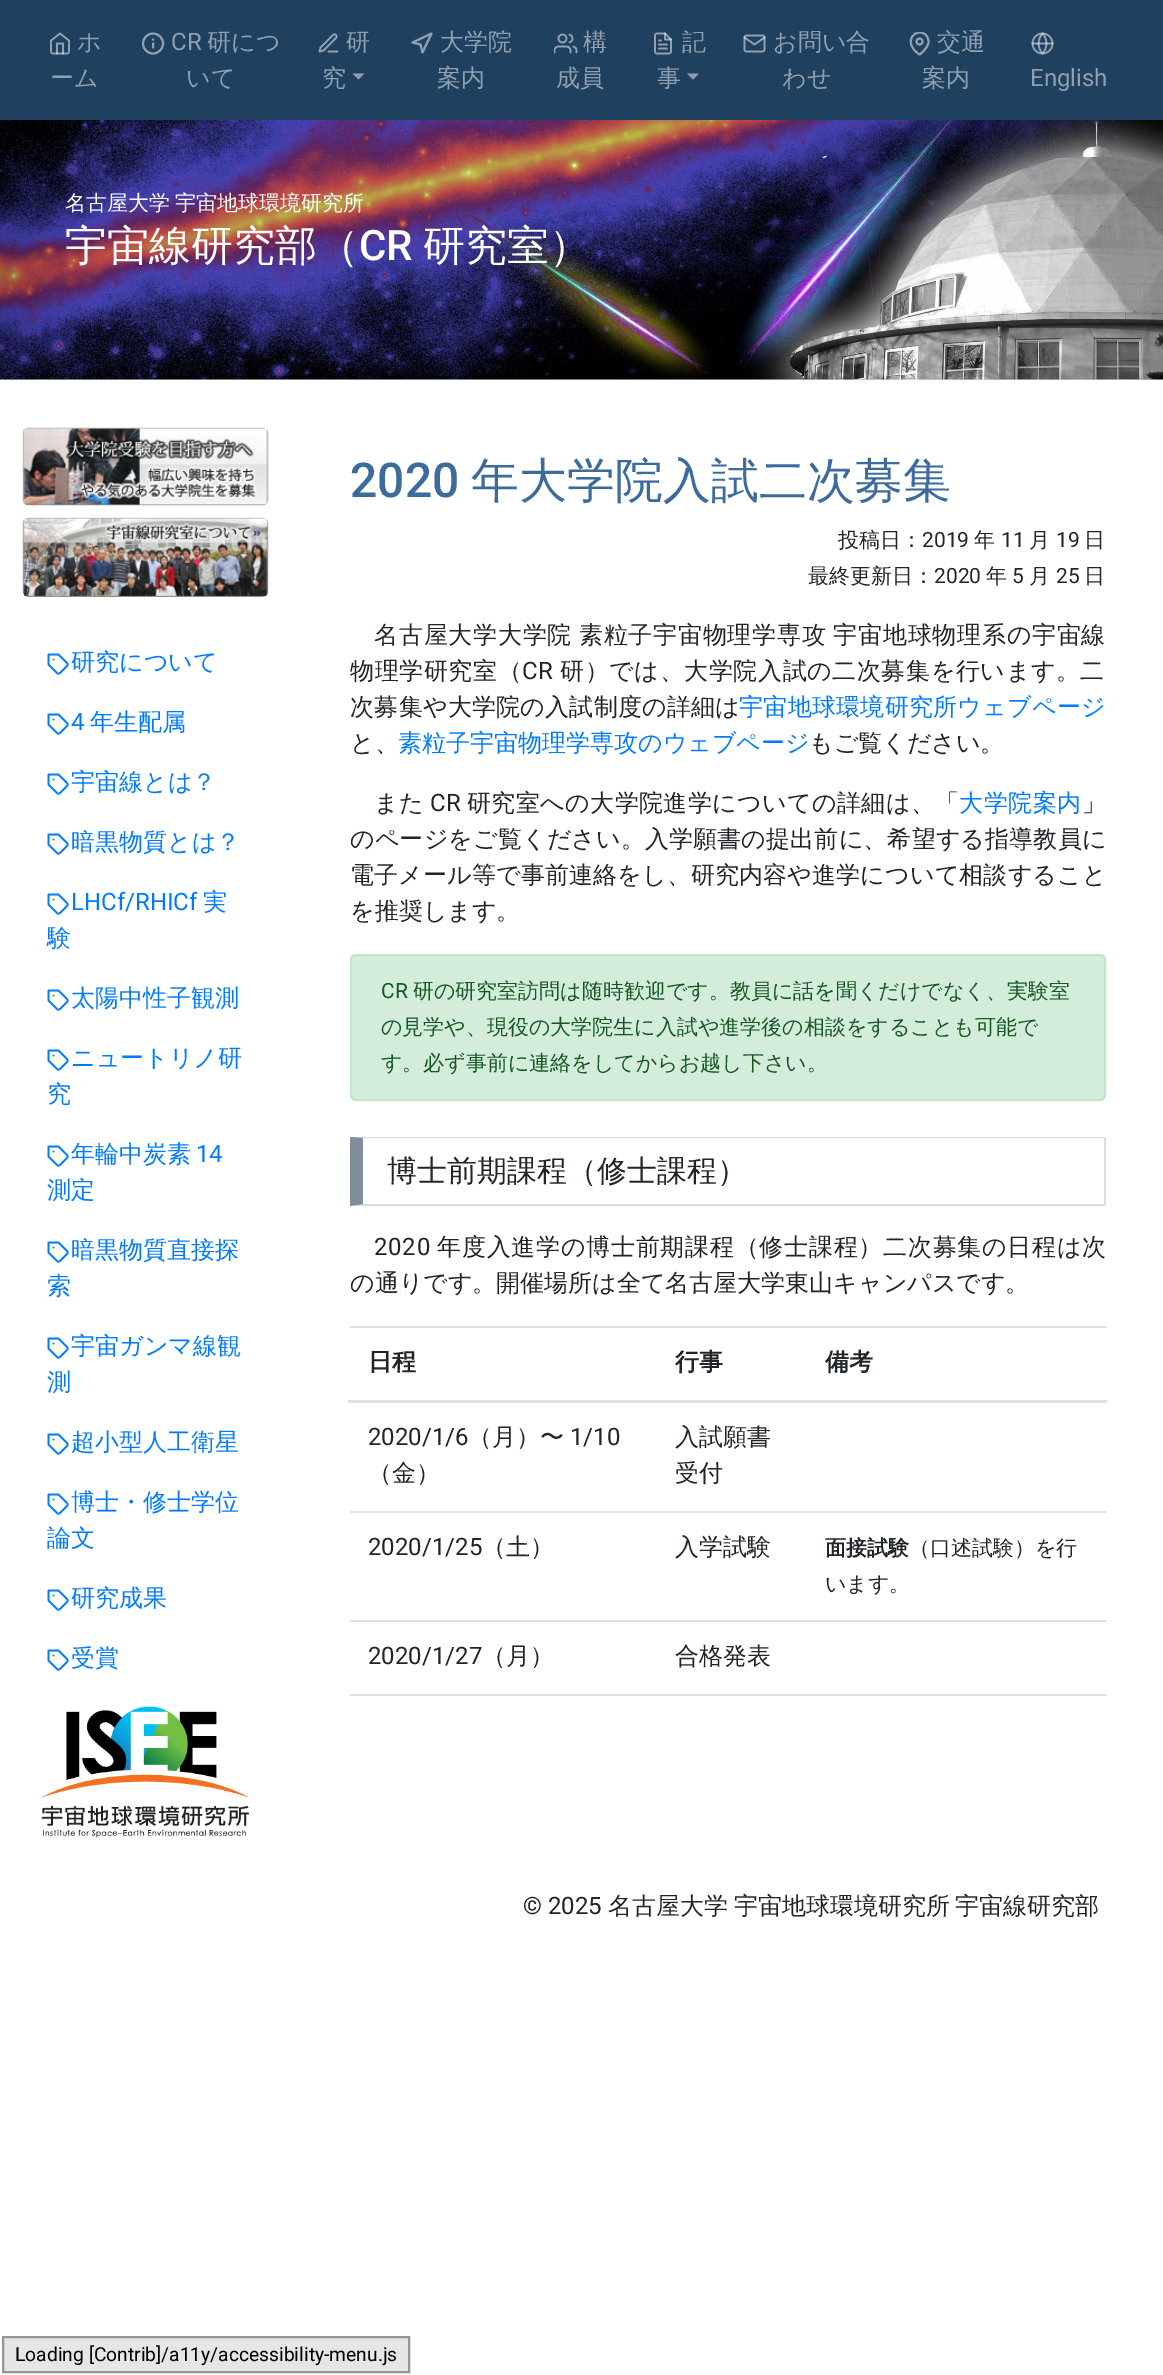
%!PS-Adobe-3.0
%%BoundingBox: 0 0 1163 2375
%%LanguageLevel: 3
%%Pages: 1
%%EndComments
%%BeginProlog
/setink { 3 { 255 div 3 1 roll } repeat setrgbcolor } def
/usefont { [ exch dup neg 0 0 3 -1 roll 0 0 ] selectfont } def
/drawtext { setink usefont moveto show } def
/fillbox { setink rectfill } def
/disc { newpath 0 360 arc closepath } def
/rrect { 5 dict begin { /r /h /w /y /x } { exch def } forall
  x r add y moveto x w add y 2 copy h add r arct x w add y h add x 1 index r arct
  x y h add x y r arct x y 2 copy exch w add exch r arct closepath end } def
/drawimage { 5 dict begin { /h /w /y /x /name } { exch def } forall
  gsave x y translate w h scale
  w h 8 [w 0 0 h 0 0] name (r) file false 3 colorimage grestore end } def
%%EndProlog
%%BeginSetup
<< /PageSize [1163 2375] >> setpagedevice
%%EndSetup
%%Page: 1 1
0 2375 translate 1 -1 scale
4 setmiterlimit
0 0 1163 2375 255 255 255 fillbox
0 0 1163 120 32 64 96 fillbox
(assets/img1.rgb) 50 32 20 23 drawimage
(ホ) 77 50 /WenQuanYiZenHei-Medium 24 144 160 176 drawtext
(ーム) 50 86 /WenQuanYiZenHei-Medium 24 144 160 176 drawtext
2 setlinewidth
153 43.5 10 disc stroke
(CR) 171 50 /Roboto-Regular 24 144 160 176 drawtext
(研につ) 207 50 /WenQuanYiZenHei-Medium 24 144 160 176 drawtext
1 setlinecap
1 setlinejoin
153 47.5 moveto 153 43.5 lineto 153 39.5 moveto 153 39.5 lineto stroke
(いて) 186 86 /WenQuanYiZenHei-Medium 24 144 160 176 drawtext
(assets/img2.rgb) 318 33 21 20 drawimage
(研) 346 50 /WenQuanYiZenHei-Medium 24 144 160 176 drawtext
(究) 322 86 /WenQuanYiZenHei-Medium 24 144 160 176 drawtext
352.5 73.5 moveto 364.5 73.5 lineto 358.5 79.5 lineto closepath fill
412.5 42.5 moveto 431.5 33.5 lineto 422.5 52.5 lineto 420.5 44.5 lineto closepath stroke
(大学院) 440 50 /WenQuanYiZenHei-Medium 24 144 160 176 drawtext
(案内) 437 86 /WenQuanYiZenHei-Medium 24 144 160 176 drawtext
(assets/img3.rgb) 554 33 24 21 drawimage
(構) 583 50 /WenQuanYiZenHei-Medium 24 144 160 176 drawtext
(成員) 556 86 /WenQuanYiZenHei-Medium 24 144 160 176 drawtext
(assets/img4.rgb) 654 32 18 23 drawimage
(記) 682 50 /WenQuanYiZenHei-Medium 24 144 160 176 drawtext
(事) 657 86 /WenQuanYiZenHei-Medium 24 144 160 176 drawtext
687 73.5 moveto 699 73.5 lineto 693 79.5 lineto closepath fill
(assets/img5.rgb) 743 34 23 19 drawimage
(お問い合) 773 50 /WenQuanYiZenHei-Medium 24 144 160 176 drawtext
(わせ) 782 86 /WenQuanYiZenHei-Medium 24 144 160 176 drawtext
gsave
908 32 24 24 rectclip
928.5 41.5 moveto 928.5 48.5 919.5 54.5 919.5 54.5 curveto 900.5 42 916.5 26 926 35 curveto 927.5 37 928.5 39 928.5 41.5 curveto closepath stroke
grestore
(交通) 937 50 /WenQuanYiZenHei-Medium 24 144 160 176 drawtext
0 setlinecap
0 setlinejoin
919.5 41.5 3 disc stroke
(案内) 922 86 /WenQuanYiZenHei-Medium 24 144 160 176 drawtext
(assets/img6.rgb) 1031 32 23 23 drawimage
(English) 1030 86 /Roboto-Regular 24 144 160 176 drawtext
0 379 1163 1 233 236 239 fillbox
(assets/img7.rgb) 0 120 1163 260 drawimage
/WenQuanYiZenHei-Medium 21 usefont
255 255 255 setink
65 210 moveto -1 0 32 (名古屋大学 宇宙地球環境研究所) widthshow
(宇宙線研究部（) 65 260 /WenQuanYiZenHei-Medium 42 255 255 255 drawtext
(CR) 359 260 /Roboto-Medium 42 255 255 255 drawtext
(研究室）) 423 260 /WenQuanYiZenHei-Medium 42 255 255 255 drawtext
(assets/img8.rgb) 22 427 247 79 drawimage
(assets/img9.rgb) 22 517 247 80 drawimage
(assets/img10.rgb) 47 653 22 22 drawimage
(研究について) 71 670 /WenQuanYiZenHei-Medium 24 0 123 255 drawtext
(assets/img10.rgb) 47 713 22 22 drawimage
(4) 71 730 /Roboto-Regular 24 0 123 255 drawtext
(年生配属) 90 730 /WenQuanYiZenHei-Medium 24 0 123 255 drawtext
(assets/img10.rgb) 47 773 22 22 drawimage
(宇宙線とは？) 71 790 /WenQuanYiZenHei-Medium 24 0 123 255 drawtext
(assets/img10.rgb) 47 833 22 22 drawimage
(暗黒物質とは？) 71 850 /WenQuanYiZenHei-Medium 24 0 123 255 drawtext
(assets/img10.rgb) 47 893 22 22 drawimage
(LHCf/RHICf) 71 910 /Roboto-Regular 24 0 123 255 drawtext
(実) 203 910 /WenQuanYiZenHei-Medium 24 0 123 255 drawtext
(験) 47 946 /WenQuanYiZenHei-Medium 24 0 123 255 drawtext
(assets/img10.rgb) 47 989 22 22 drawimage
(太陽中性子観測) 71 1006 /WenQuanYiZenHei-Medium 24 0 123 255 drawtext
(assets/img10.rgb) 47 1049 22 22 drawimage
(ニュートリノ研) 71 1066 /WenQuanYiZenHei-Medium 24 0 123 255 drawtext
(究) 47 1102 /WenQuanYiZenHei-Medium 24 0 123 255 drawtext
(assets/img10.rgb) 47 1145 22 22 drawimage
(年輪中炭素) 71 1162 /WenQuanYiZenHei-Medium 24 0 123 255 drawtext
(14) 196 1162 /Roboto-Regular 24 0 123 255 drawtext
(測定) 47 1198 /WenQuanYiZenHei-Medium 24 0 123 255 drawtext
(assets/img10.rgb) 47 1241 22 22 drawimage
(暗黒物質直接探) 71 1258 /WenQuanYiZenHei-Medium 24 0 123 255 drawtext
(索) 47 1294 /WenQuanYiZenHei-Medium 24 0 123 255 drawtext
(assets/img10.rgb) 47 1337 22 22 drawimage
(宇宙ガンマ線観) 71 1354 /WenQuanYiZenHei-Medium 24 0 123 255 drawtext
(測) 47 1390 /WenQuanYiZenHei-Medium 24 0 123 255 drawtext
(assets/img10.rgb) 47 1433 22 22 drawimage
(超小型人工衛星) 71 1450 /WenQuanYiZenHei-Medium 24 0 123 255 drawtext
(assets/img10.rgb) 47 1493 22 22 drawimage
(博士・修士学位) 71 1510 /WenQuanYiZenHei-Medium 24 0 123 255 drawtext
(論文) 47 1546 /WenQuanYiZenHei-Medium 24 0 123 255 drawtext
(assets/img10.rgb) 47 1589 22 22 drawimage
(研究成果) 71 1606 /WenQuanYiZenHei-Medium 24 0 123 255 drawtext
(assets/img10.rgb) 47 1649 22 22 drawimage
(受賞) 71 1666 /WenQuanYiZenHei-Medium 24 0 123 255 drawtext
(assets/img11.rgb) 41 1706 208 132 drawimage
(2020) 350 497 /Roboto-Medium 48 60 107 156 drawtext
(年大学院入試二次募集) 471 497 /WenQuanYiZenHei-Medium 48 60 107 156 drawtext
(投稿日：) 838 547 /WenQuanYiZenHei-Medium 21 33 37 41 drawtext
(2019) 922 547 /Roboto-Regular 21 33 37 41 drawtext
(年) 974 547 /WenQuanYiZenHei-Medium 21 33 37 41 drawtext
(11) 1001 547 /Roboto-Regular 21 33 37 41 drawtext
(月) 1029 547 /WenQuanYiZenHei-Medium 21 33 37 41 drawtext
(19) 1056 547 /Roboto-Regular 21 33 37 41 drawtext
(日) 1084 547 /WenQuanYiZenHei-Medium 21 33 37 41 drawtext
(最終更新日：) 808 583 /WenQuanYiZenHei-Medium 21 33 37 41 drawtext
(2020) 934 583 /Roboto-Regular 21 33 37 41 drawtext
(年) 986 583 /WenQuanYiZenHei-Medium 21 33 37 41 drawtext
(5) 1012 583 /Roboto-Regular 21 33 37 41 drawtext
(月) 1029 583 /WenQuanYiZenHei-Medium 21 33 37 41 drawtext
(25) 1056 583 /Roboto-Regular 21 33 37 41 drawtext
(日) 1084 583 /WenQuanYiZenHei-Medium 21 33 37 41 drawtext
/WenQuanYiZenHei-Medium 24 usefont
374 643 moveto -1 0 32 0.75 0 (名古屋大学大学院 素粒子宇宙物理学専攻 宇宙地球物理系の宇宙線) awidthshow
350 679 moveto 0.6 0 (物理学研究室（) ashow
/Roboto-Regular 24 usefont
522 679 moveto 0.6 0 (CR) ashow
/WenQuanYiZenHei-Medium 24 usefont
560 679 moveto 0.6 0 (研）では、大学院入試の二次募集を行います。二) ashow
350 715 moveto 0.25 0 (次募集や大学院の入試制度の詳細は) ashow
0 123 255 setink
739 715 moveto 0.25 0 (宇宙地球環境研究所ウェブページ) ashow
(と、) 350 751 /WenQuanYiZenHei-Medium 24 33 37 41 drawtext
(素粒子宇宙物理学専攻のウェブページ) 398 751 /WenQuanYiZenHei-Medium 24 0 123 255 drawtext
(もご覧ください。) 809 751 /WenQuanYiZenHei-Medium 24 33 37 41 drawtext
374 811 moveto 0.4 0 (また) ashow
/Roboto-Regular 24 usefont
430 811 moveto 0.4 0 (CR) ashow
/WenQuanYiZenHei-Medium 24 usefont
467 811 moveto 0.4 0 (研究室への大学院進学についての詳細は、「) ashow
0 123 255 setink
959 811 moveto 0.5 0 (大学院案内) ashow
(」) 1082 811 /WenQuanYiZenHei-Medium 24 33 37 41 drawtext
350 847 moveto 0.15 0 (のページをご覧ください。入学願書の提出前に、希望する指導教員に) ashow
350 883 moveto 0.15 0 (電子メール等で事前連絡をし、研究内容や進学について相談すること) ashow
(を推奨します。) 350 919 /WenQuanYiZenHei-Medium 24 33 37 41 drawtext
212 237 218 setink
351 955 754 145 5 rrect gsave fill grestore
195 230 203 setink
stroke
(CR) 381 998 /Roboto-Regular 21 21 87 36 drawtext
(研の研究室訪問は随時歓迎です。教員に話を聞くだけでなく、実験室) 413 998 /WenQuanYiZenHei-Medium 21 21 87 36 drawtext
(の見学や、現役の大学院生に入試や進学後の相談をすることも可能で) 381 1034 /WenQuanYiZenHei-Medium 21 21 87 36 drawtext
(す。必ず事前に連絡をしてからお越し下さい。) 381 1070 /WenQuanYiZenHei-Medium 21 21 87 36 drawtext
221 221 221 setink
350 1137 moveto 1106 1137 lineto 1104 1138 lineto 363 1138 lineto closepath fill
1104 1137 2 69 221 221 221 fillbox
1106 1206 moveto 350 1206 lineto 363 1204 lineto 1104 1204 lineto closepath fill
128 141 156 setink
350 1206 moveto 350 1137 lineto 363 1138 lineto 363 1204 lineto closepath fill
(博士前期課程（修士課程）) 387 1181 /WenQuanYiZenHei-Medium 30 33 37 41 drawtext
/Roboto-Regular 24 usefont
374 1255 moveto 0.75 0 (2020) ashow
/WenQuanYiZenHei-Medium 24 usefont
437 1255 moveto 0.75 0 (年度入進学の博士前期課程（修士課程）二次募集の日程は次) ashow
(の通りです。開催場所は全て名古屋大学東山キャンパスです。) 350 1291 /WenQuanYiZenHei-Medium 24 33 37 41 drawtext
(日程) 368 1370 /WenQuanYiZenHei-Bold 24 33 37 41 drawtext
(行事) 675 1370 /WenQuanYiZenHei-Bold 24 33 37 41 drawtext
350 1326 757 2 222 226 230 fillbox
348 1400 759 3 222 226 230 fillbox
(備考) 825 1370 /WenQuanYiZenHei-Bold 24 33 37 41 drawtext
(2020/1/6) 368 1445 /Roboto-Regular 24 33 37 41 drawtext
(（月）〜) 468 1445 /WenQuanYiZenHei-Medium 24 33 37 41 drawtext
(1/10) 570 1445 /Roboto-Regular 24 33 37 41 drawtext
(（金）) 368 1481 /WenQuanYiZenHei-Medium 24 33 37 41 drawtext
(入試願書) 675 1445 /WenQuanYiZenHei-Medium 24 33 37 41 drawtext
(受付) 675 1481 /WenQuanYiZenHei-Medium 24 33 37 41 drawtext
(2020/1/25) 368 1555 /Roboto-Regular 24 33 37 41 drawtext
(（土）) 482 1555 /WenQuanYiZenHei-Medium 24 33 37 41 drawtext
(入学試験) 675 1555 /WenQuanYiZenHei-Medium 24 33 37 41 drawtext
350 1511 757 2 222 226 230 fillbox
(面接試験) 825 1555 /WenQuanYiZenHei-Bold 21 33 37 41 drawtext
(（口述試験）を行) 909 1555 /WenQuanYiZenHei-Medium 21 33 37 41 drawtext
(います。) 825 1591 /WenQuanYiZenHei-Medium 21 33 37 41 drawtext
350 1620 757 2 222 226 230 fillbox
(2020/1/27) 368 1664 /Roboto-Regular 24 33 37 41 drawtext
(（月）) 482 1664 /WenQuanYiZenHei-Medium 24 33 37 41 drawtext
(合格発表) 675 1664 /WenQuanYiZenHei-Medium 24 33 37 41 drawtext
350 1694 757 2 222 226 230 fillbox
(© 2025) 523 1914 /Roboto-Regular 24 33 37 41 drawtext
(名古屋大学) 608 1914 /WenQuanYiZenHei-Medium 24 33 37 41 drawtext
(宇宙地球環境研究所) 734 1914 /WenQuanYiZenHei-Medium 24 33 37 41 drawtext
(宇宙線研究部) 955 1914 /WenQuanYiZenHei-Medium 24 33 37 41 drawtext
230 230 230 setink
3 2337 moveto 409 2337 lineto 409 2372 lineto 3 2372 lineto closepath gsave fill grestore
149 149 149 setink
stroke
(Loading [Contrib]/a11y/accessibility-menu.js) 15 2361 /Roboto-Regular 19.25 0 0 0 drawtext
showpage
%%EOF
